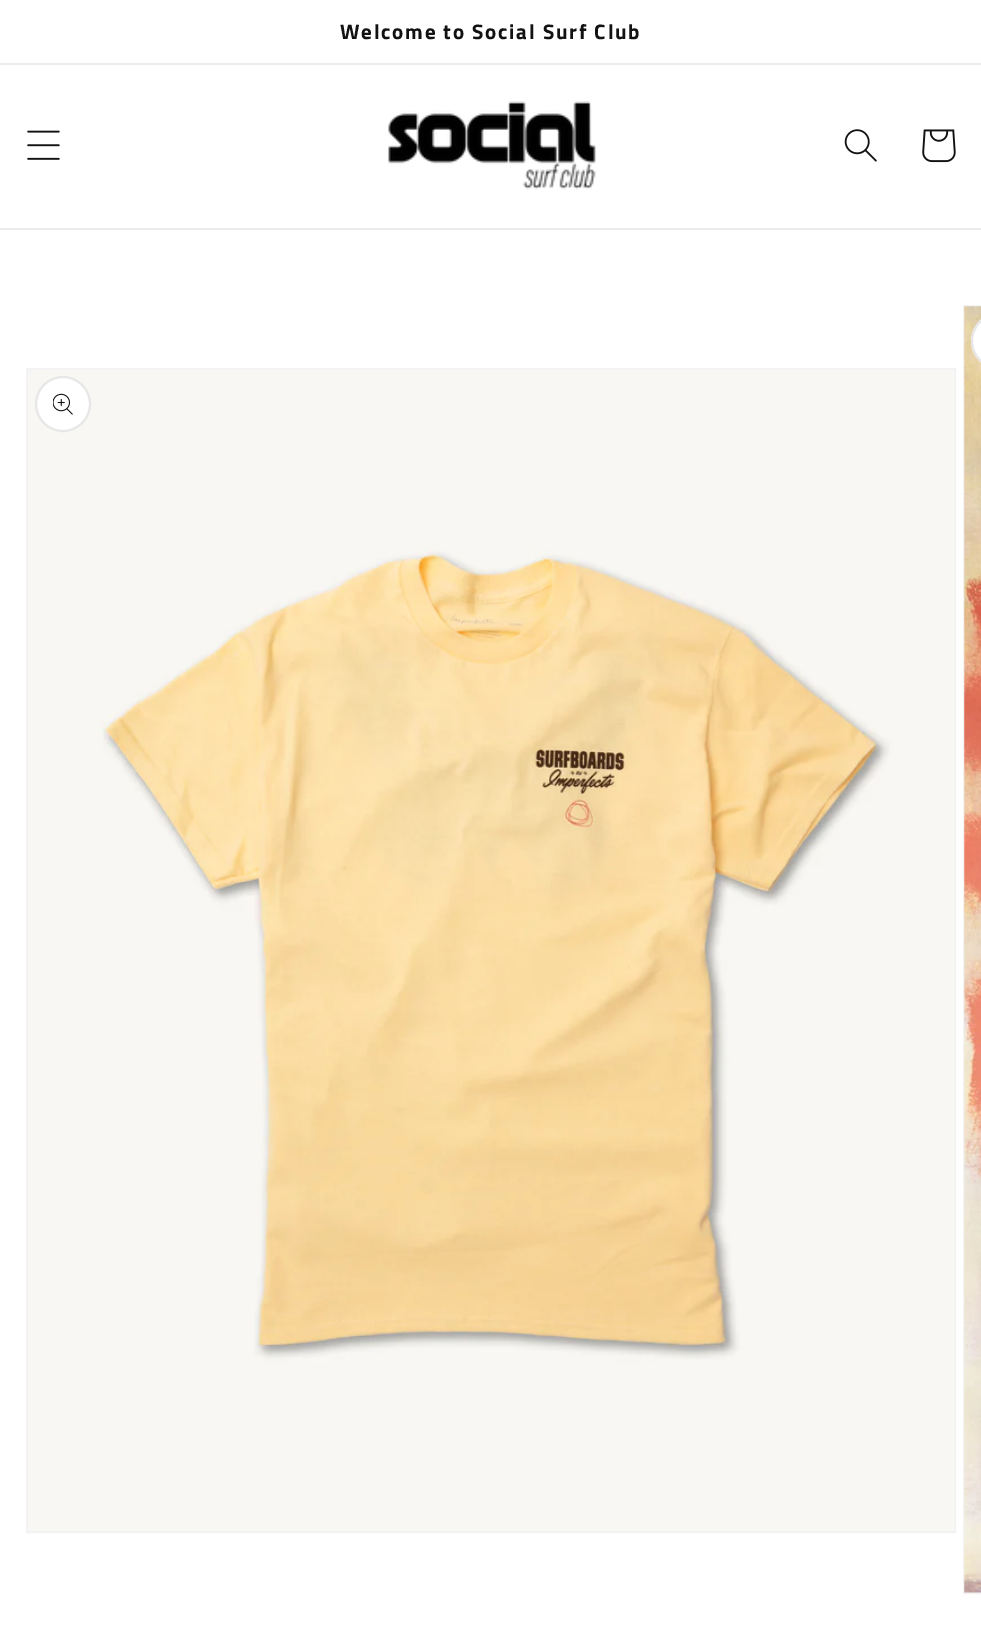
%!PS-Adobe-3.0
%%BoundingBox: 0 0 981 1628
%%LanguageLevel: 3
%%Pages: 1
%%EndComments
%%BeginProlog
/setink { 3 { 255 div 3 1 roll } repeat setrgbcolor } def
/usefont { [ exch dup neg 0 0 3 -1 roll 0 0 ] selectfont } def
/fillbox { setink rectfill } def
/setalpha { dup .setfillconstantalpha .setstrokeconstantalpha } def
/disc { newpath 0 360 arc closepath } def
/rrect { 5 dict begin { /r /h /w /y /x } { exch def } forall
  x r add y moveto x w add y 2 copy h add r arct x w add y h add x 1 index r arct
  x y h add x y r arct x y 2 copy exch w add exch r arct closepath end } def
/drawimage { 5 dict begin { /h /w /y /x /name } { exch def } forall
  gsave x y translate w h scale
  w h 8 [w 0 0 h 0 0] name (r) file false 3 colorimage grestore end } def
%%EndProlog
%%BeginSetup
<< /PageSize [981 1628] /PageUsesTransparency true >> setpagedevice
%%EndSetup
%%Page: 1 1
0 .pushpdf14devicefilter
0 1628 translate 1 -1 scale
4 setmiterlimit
0 0 981 1628 255 255 255 fillbox
0 63 981 2 236 236 236 fillbox
/TitilliumWeb-Bold 21 usefont
18 18 18 setink
340 39 moveto 1.75 0 (Welcome to Social Surf Club) ashow
0 228 981 2 236 236 236 fillbox
(assets/img1.rgb) 27 130 33 30 drawimage
(assets/img2.rgb) 388 101 208 89 drawimage
(assets/img3.rgb) 844 129 33 33 drawimage
(assets/img4.rgb) 922 129 34 34 drawimage
243 243 243 setink
2 setlinewidth
27 369 928 1163 rectstroke
(assets/img5.rgb) 28 370 926 1161 drawimage
255 255 255 setink
63 404 28 disc fill
0.1 setalpha
18 18 18 setink
63 404 27 disc stroke
1 setalpha
(assets/img6.rgb) 53 393 20 22 drawimage
243 243 243 setink
964 306 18 1287 rectstroke
(assets/img7.rgb) 964 306 17 1287 drawimage
255 255 255 setink
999 313 moveto 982 313 lineto 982 369 lineto 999 369 lineto 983.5 369 971 356.5 971 341 curveto 971 325.5 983.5 313 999 313 curveto closepath fill
0.1 setalpha
18 18 18 setink
972 314 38 54 27 rrect stroke
.poppdf14devicefilter showpage
%%EOF
